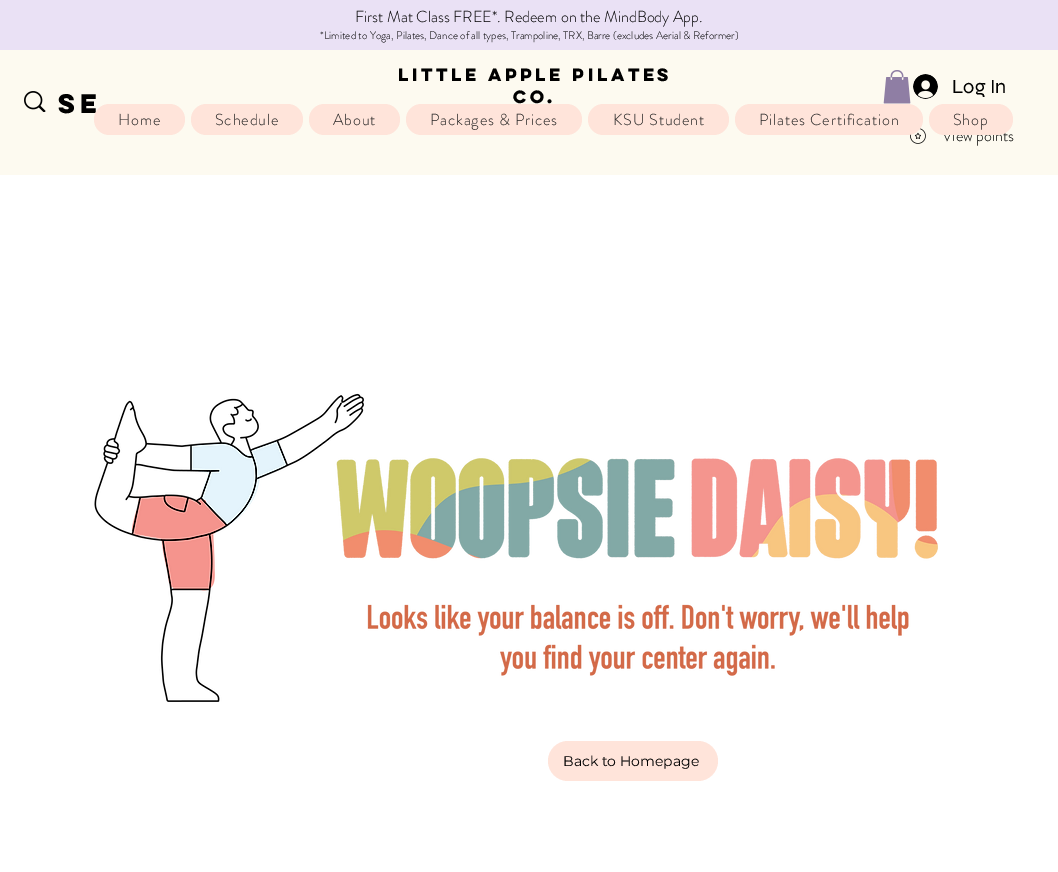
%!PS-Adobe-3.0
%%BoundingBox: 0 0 1058 872
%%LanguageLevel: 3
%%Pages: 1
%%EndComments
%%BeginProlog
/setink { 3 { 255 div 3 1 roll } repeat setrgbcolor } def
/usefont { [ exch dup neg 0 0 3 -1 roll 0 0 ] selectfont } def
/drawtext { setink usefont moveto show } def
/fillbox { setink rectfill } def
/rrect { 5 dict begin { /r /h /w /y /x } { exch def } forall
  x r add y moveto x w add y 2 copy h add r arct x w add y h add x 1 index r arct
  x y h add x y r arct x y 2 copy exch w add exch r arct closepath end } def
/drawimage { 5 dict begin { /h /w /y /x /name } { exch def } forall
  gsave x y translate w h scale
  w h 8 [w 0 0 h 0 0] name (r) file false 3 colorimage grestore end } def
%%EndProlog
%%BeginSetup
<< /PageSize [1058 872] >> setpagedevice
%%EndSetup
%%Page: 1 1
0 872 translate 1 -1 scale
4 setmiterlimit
0 0 1058 872 255 255 255 fillbox
0 0 1058 50 234 225 245 fillbox
(First Mat Class FREE*. Redeem on the MindBody App.) 355 22 /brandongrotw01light-Light 16 0 0 0 drawtext
(*Limited to Yoga, Pilates, Dance of all types, Trampoline, TRX, Barre \(excludes Aerial & Reformer\)) 320 39 /brandongrotw01light-Light 11 0 0 0 drawtext
0 50 1058 125 253 250 240 fillbox
(assets/img1.rgb) 24 91 22 21 drawimage
(Se) 58 113 /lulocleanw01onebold-Bold 24 0 0 0 drawtext
(Little Apple pilates) 398 81 /lulocleanw01onebold-Bold 16 0 0 0 drawtext
(co.) 513 103 /lulocleanw01onebold-Bold 16 0 0 0 drawtext
(assets/img2.rgb) 883 70 28 34 drawimage
(assets/img3.rgb) 913 74 25 25 drawimage
(Log In) 952 93 /Syne-Regular 20 0 0 0 drawtext
(assets/img4.rgb) 910 128 16 16 drawimage
(View points) 942 141 /brandongrotw01light-Light 16 0 0 0 drawtext
255 228 218 setink
94 104 91 31 15.5 rrect fill
36 35 35 setink
118 125 moveto 0.8 0 (Home) ashow
255 228 218 setink
191 104 112 31 15.5 rrect fill
36 35 35 setink
215 125 moveto 0.8 0 (Schedule) ashow
255 228 218 setink
309 104 91 31 15.5 rrect fill
36 35 35 setink
333 125 moveto 0.8 0 (About) ashow
255 228 218 setink
406 104 176 31 15.5 rrect fill
36 35 35 setink
430 125 moveto 0.8 0 (Packages & Prices) ashow
255 228 218 setink
588 104 141 31 15.5 rrect fill
36 35 35 setink
613 125 moveto 0.8 0 (KSU Student) ashow
255 228 218 setink
735 104 188 31 15.5 rrect fill
36 35 35 setink
759 125 moveto 0.8 0 (Pilates Certification) ashow
255 228 218 setink
929 104 84 31 15.5 rrect fill
36 35 35 setink
953 125 moveto 0.8 0 (Shop) ashow
(assets/img5.rgb) 94 393 844 309 drawimage
255 228 218 setink
548 741 170 40 20 rrect fill
(Back to Homepage) 563 766 /Montserrat-Regular 14 0 0 0 drawtext
showpage
%%EOF
